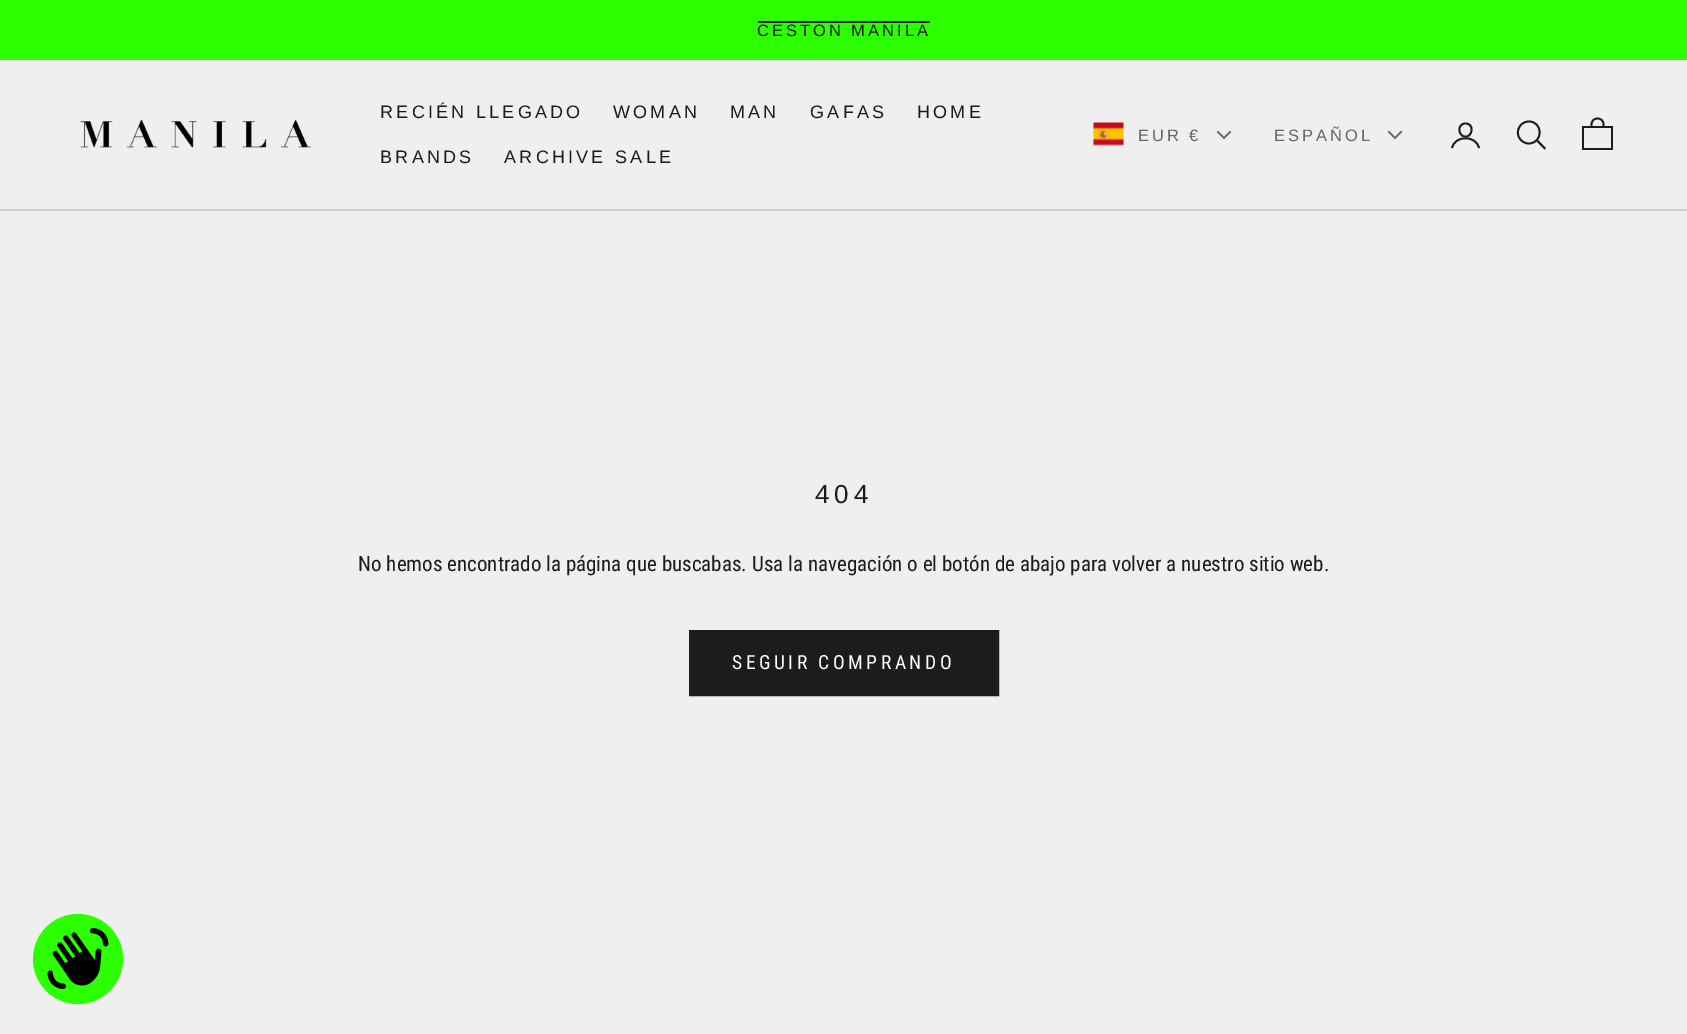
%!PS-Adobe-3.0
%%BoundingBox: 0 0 1687 1034
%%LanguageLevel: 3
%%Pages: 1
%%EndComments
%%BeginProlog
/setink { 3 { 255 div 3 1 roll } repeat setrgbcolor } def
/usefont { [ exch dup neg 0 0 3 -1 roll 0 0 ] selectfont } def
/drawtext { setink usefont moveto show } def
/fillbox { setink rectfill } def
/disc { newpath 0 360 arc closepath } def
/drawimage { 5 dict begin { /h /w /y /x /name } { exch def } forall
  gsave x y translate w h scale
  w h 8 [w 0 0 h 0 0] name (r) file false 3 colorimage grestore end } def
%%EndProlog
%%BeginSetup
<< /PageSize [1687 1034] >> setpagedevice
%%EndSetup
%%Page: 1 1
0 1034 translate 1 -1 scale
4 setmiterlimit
0 0 1687 1034 239 239 239 fillbox
0 0 1687 60 44 255 0 fillbox
/LiberationSans-Regular 16.5 usefont
28 28 28 setink
757 36 moveto 3 0 (CESTON MANILA) ashow
758 21 172 2 28 28 28 fillbox
0 209 1687 2 207 207 207 fillbox
(assets/img1.rgb) 80 119 231 29 drawimage
/LiberationSans-Regular 18 usefont
28 28 28 setink
380 118 moveto 3.25 0 (RECIÉN LLEGADO) ashow
613 118 moveto 3.25 0 (WOMAN) ashow
730 118 moveto 3.25 0 (MAN) ashow
810 118 moveto 3.25 0 (GAFAS) ashow
917 118 moveto 3.25 0 (HOME) ashow
380 163 moveto 3.25 0 (BRANDS) ashow
504 163 moveto 3.25 0 (ARCHIVE SALE) ashow
(assets/img2.rgb) 1093 122 31 24 drawimage
/LiberationSans-Regular 16.5 usefont
102 102 102 setink
1138 141 moveto 3 0 (EUR €) ashow
1.5 setlinewidth
2 setlinecap
1218 132 moveto 1224 138 lineto 1230 132 lineto stroke
1274 141 moveto 3 0 (ESPAÑOL) ashow
1389 132 moveto 1395 138 lineto 1401 132 lineto stroke
28 28 28 setink
1.8 setlinewidth
1 setlinecap
1 setlinejoin
1471.5 130 moveto 1471 140 1458 138 1459.5 128.5 curveto 1460.5 121 1472.5 122 1471.5 130 curveto closepath stroke
0 setlinecap
0 setlinejoin
1452 148 moveto 1454.5 135 1476.5 135 1479 148 curveto stroke
1529 121.5 moveto 1517.5 121.5 1513.5 136.5 1523.5 142 curveto 1525 143 1527 143.5 1529 143.5 curveto 1543.5 143 1543 121.5 1529 121.5 curveto closepath stroke
1 setlinecap
1537.5 141 moveto 1545 148.5 lineto stroke
0 setlinecap
1612 149 moveto 1612 127 lineto 1583 127 lineto 1583 149 lineto closepath 1591.5 126 moveto 1591.5 124.5 lineto 1591.5 121 1594 118.5 1597.5 118.5 curveto 1601 118.5 1603.5 121 1603.5 124.5 curveto 1603.5 126 lineto stroke
/LiberationSans-Regular 26 usefont
815 503 moveto 5 0 (404) ashow
(No hemos encontrado la página que buscabas. Usa la navegación o el botón de abajo para volver a nuestro sitio web.) 358 571 /RobotoCondensed-Regular 21 28 28 28 drawtext
690 631 moveto 998 631 lineto 998 695 lineto 690 695 lineto closepath gsave fill grestore
2 setlinewidth
stroke
/RobotoCondensed-Regular 19.5 usefont
255 255 255 setink
732 669 moveto 3.5 0 (SEGUIR COMPRANDO) ashow
44 255 0 setink
78 959 45 disc fill
(assets/img3.rgb) 47 928 62 61 drawimage
showpage
%%EOF
